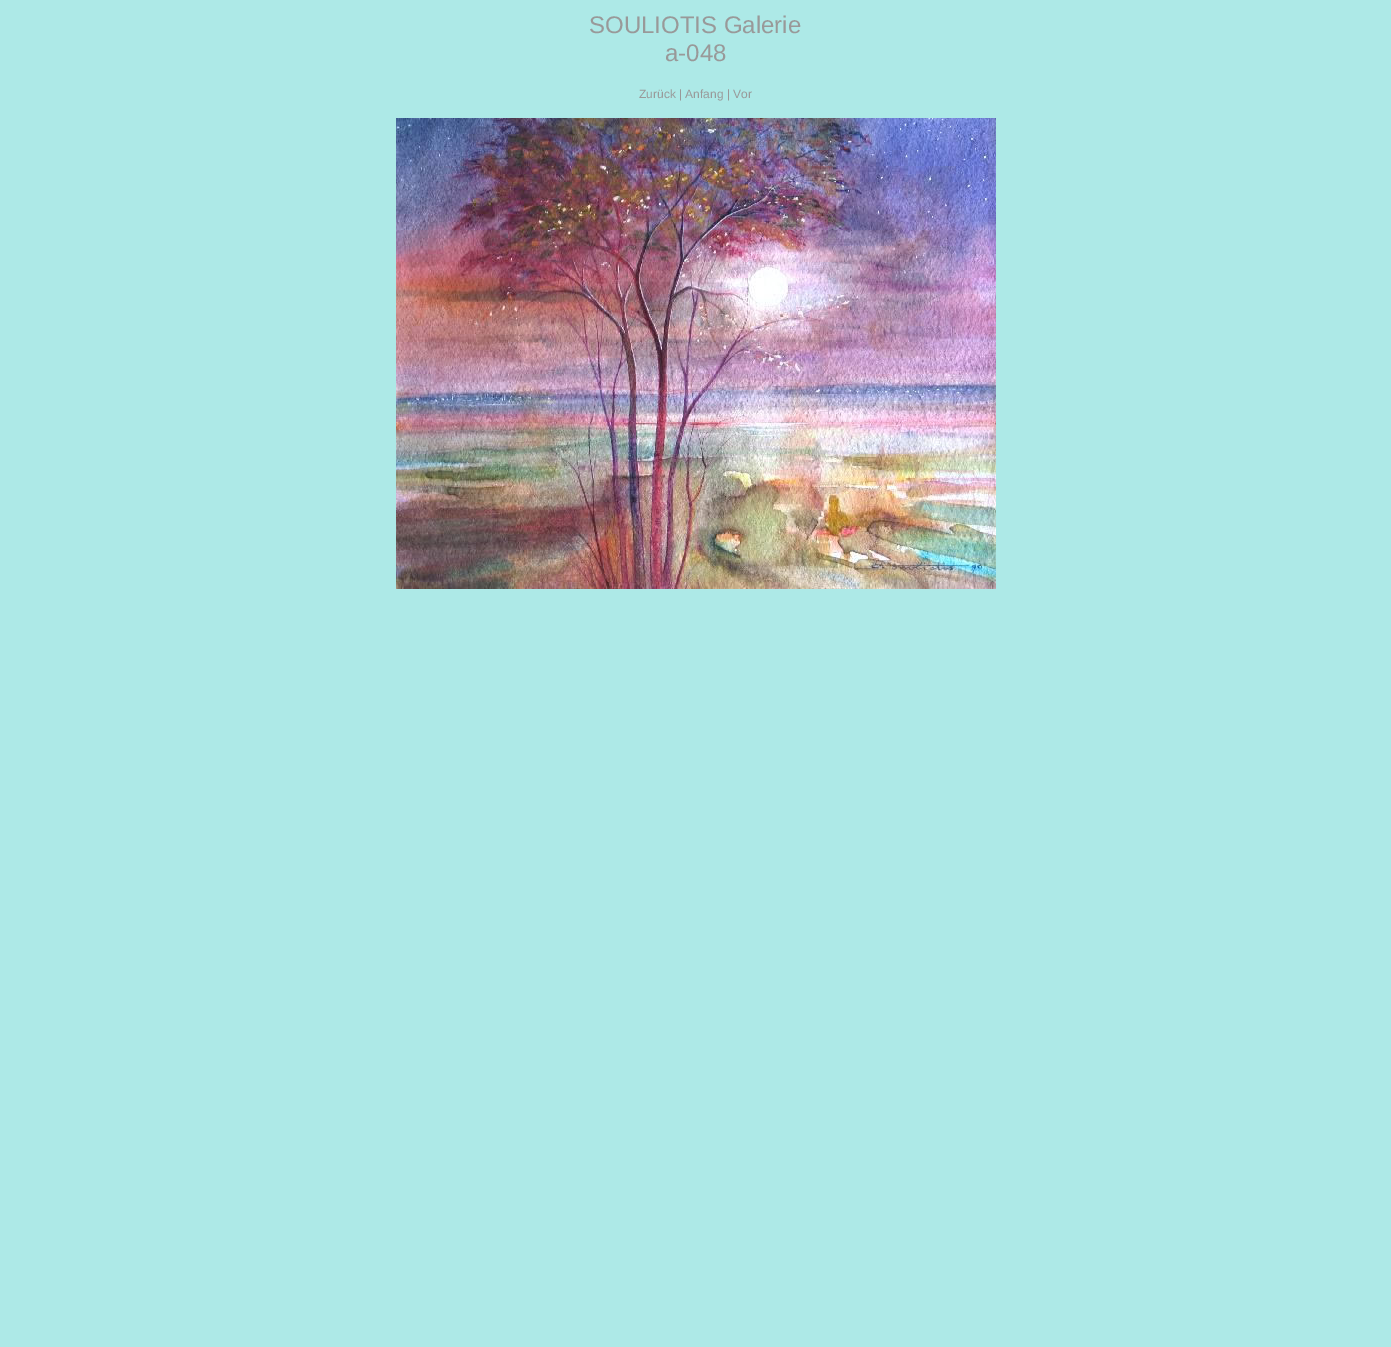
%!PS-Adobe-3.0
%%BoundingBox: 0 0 1391 1347
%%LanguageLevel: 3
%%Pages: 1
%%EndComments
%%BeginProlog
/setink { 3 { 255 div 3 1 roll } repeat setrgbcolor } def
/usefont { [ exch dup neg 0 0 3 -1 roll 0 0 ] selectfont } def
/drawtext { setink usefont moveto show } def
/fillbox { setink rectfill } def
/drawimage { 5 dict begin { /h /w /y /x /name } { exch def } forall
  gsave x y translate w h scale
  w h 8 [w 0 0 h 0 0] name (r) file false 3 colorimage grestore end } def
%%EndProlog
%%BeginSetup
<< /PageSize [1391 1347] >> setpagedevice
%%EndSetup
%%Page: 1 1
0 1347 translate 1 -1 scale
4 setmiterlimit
0 0 1391 1347 173 233 231 fillbox
(SOULIOTIS Galerie) 589 33 /LiberationSans-Regular 24 153 153 153 drawtext
(a-048) 665 61 /LiberationSans-Regular 24 153 153 153 drawtext
(Zurück | Anfang | Vor) 639 98 /LiberationSans-Regular 12 153 153 153 drawtext
(assets/img1.rgb) 396 118 600 471 drawimage
showpage
%%EOF
